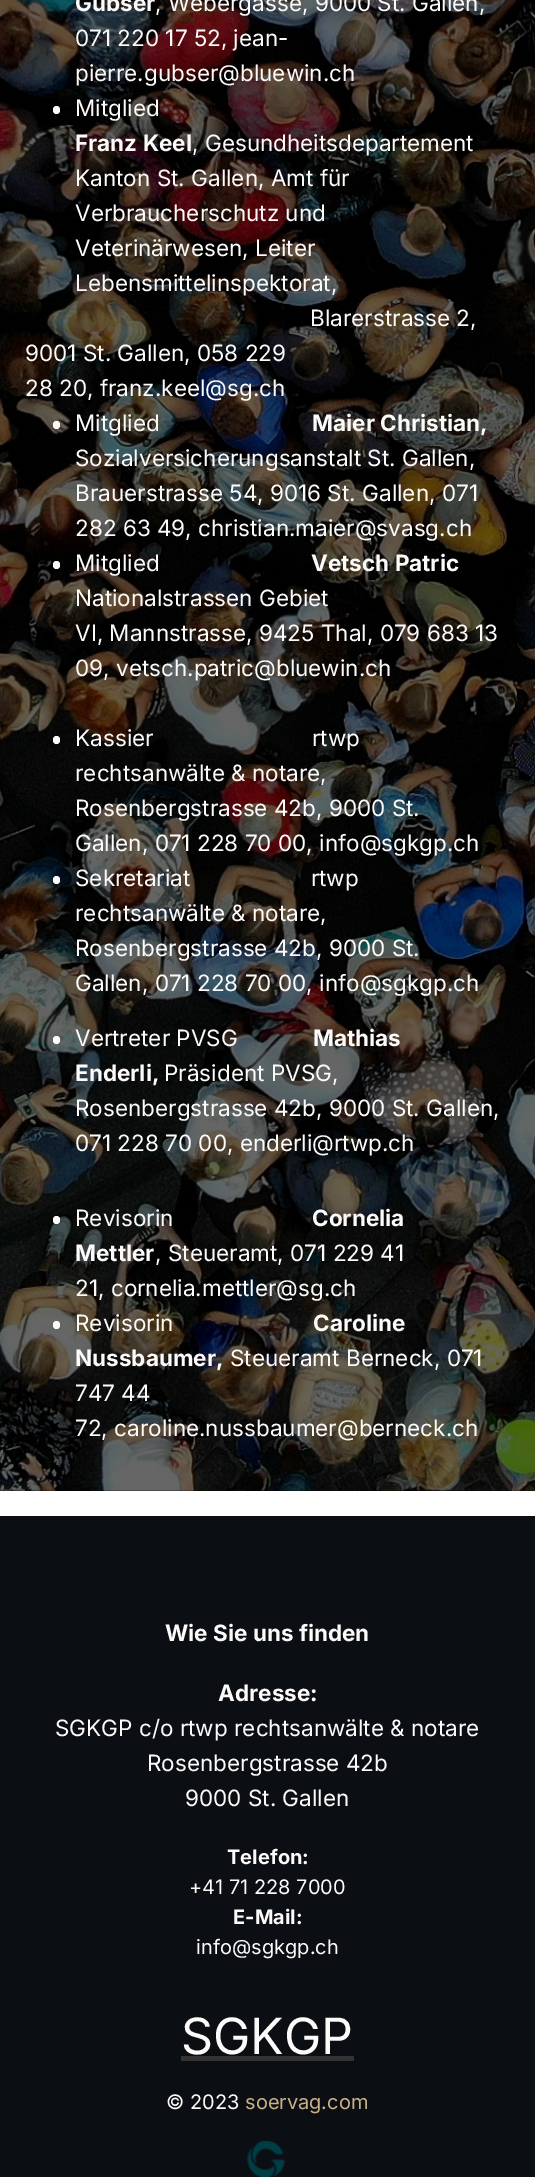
%!PS-Adobe-3.0
%%BoundingBox: 0 0 535 2177
%%LanguageLevel: 3
%%Pages: 1
%%EndComments
%%BeginProlog
/setink { 3 { 255 div 3 1 roll } repeat setrgbcolor } def
/usefont { [ exch dup neg 0 0 3 -1 roll 0 0 ] selectfont } def
/drawtext { setink usefont moveto show } def
/fillbox { setink rectfill } def
/rrect { 5 dict begin { /r /h /w /y /x } { exch def } forall
  x r add y moveto x w add y 2 copy h add r arct x w add y h add x 1 index r arct
  x y h add x y r arct x y 2 copy exch w add exch r arct closepath end } def
/drawimage { 5 dict begin { /h /w /y /x /name } { exch def } forall
  gsave x y translate w h scale
  w h 8 [w 0 0 h 0 0] name (r) file false 3 colorimage grestore end } def
%%EndProlog
%%BeginSetup
<< /PageSize [535 2177] >> setpagedevice
%%EndSetup
%%Page: 1 1
0 2177 translate 1 -1 scale
4 setmiterlimit
0 0 535 2177 255 255 255 fillbox
0 0 535 1491 0 0 0 fillbox
(assets/img1.rgb) 0 0 535 1491 drawimage
(Gubser) 75 11 /Inter-Bold 22.5 253 250 250 drawtext
(, Webergasse, 9000 St. Gallen,) 155 11 /Inter-Regular 22.5 253 250 250 drawtext
(071 220 17 52, jean-) 75 46 /Inter-Regular 22.5 253 250 250 drawtext
(pierre.gubser@bluewin.ch) 75 81 /Inter-Regular 22.5 253 250 250 drawtext
53 106 7 8 3.5 rrect fill
(Mitglied) 75 116 /Inter-Regular 22.5 253 250 250 drawtext
(Franz Keel) 75 151 /Inter-Bold 22.5 253 250 250 drawtext
(, Gesundheitsdepartement) 192 151 /Inter-Regular 22.5 253 250 250 drawtext
(Kanton St. Gallen, Amt für) 75 186 /Inter-Regular 22.5 253 250 250 drawtext
(Verbraucherschutz und) 75 221 /Inter-Regular 22.5 253 250 250 drawtext
(Veterinärwesen, Leiter) 75 256 /Inter-Regular 22.5 253 250 250 drawtext
(Lebensmittelinspektorat,) 75 291 /Inter-Regular 22.5 253 250 250 drawtext
(Blarerstrasse 2,) 310 326 /Inter-Regular 22.5 253 250 250 drawtext
(9001 St. Gallen, 058 229) 25 361 /Inter-Regular 22.5 253 250 250 drawtext
(28 20, franz.keel@sg.ch) 25 396 /Inter-Regular 22.5 253 250 250 drawtext
53 421 7 8 3.5 rrect fill
(Mitglied) 75 431 /Inter-Regular 22.5 253 250 250 drawtext
(Maier Christian,) 312 431 /Inter-Bold 22.5 253 250 250 drawtext
(Sozialversicherungsanstalt St. Gallen,) 75 466 /Inter-Regular 22.5 253 250 250 drawtext
(Brauerstrasse 54, 9016 St. Gallen, 071) 75 501 /Inter-Regular 22.5 253 250 250 drawtext
(282 63 49, christian.maier@svasg.ch) 75 536 /Inter-Regular 22.5 253 250 250 drawtext
53 561 7 8 3.5 rrect fill
(Mitglied) 75 571 /Inter-Regular 22.5 253 250 250 drawtext
(Vetsch Patric) 311 571 /Inter-Bold 22.5 253 250 250 drawtext
(Nationalstrassen Gebiet) 75 606 /Inter-Regular 22.5 253 250 250 drawtext
(VI, Mannstrasse, 9425 Thal, 079 683 13) 75 641 /Inter-Regular 22.5 253 250 250 drawtext
(09, vetsch.patric@bluewin.ch) 75 676 /Inter-Regular 22.5 253 250 250 drawtext
53 736 7 8 3.5 rrect fill
(Kassier                         rtwp) 75 746 /Inter-Regular 22.5 253 250 250 drawtext
(rechtsanwälte & notare,) 75 781 /Inter-Regular 22.5 253 250 250 drawtext
(Rosenbergstrasse 42b, 9000 St.) 75 816 /Inter-Regular 22.5 253 250 250 drawtext
(Gallen, 071 228 70 00, info@sgkgp.ch) 75 851 /Inter-Regular 22.5 253 250 250 drawtext
53 876 7 8 3.5 rrect fill
(Sekretariat                   rtwp) 75 886 /Inter-Regular 22.5 253 250 250 drawtext
(rechtsanwälte & notare,) 75 921 /Inter-Regular 22.5 253 250 250 drawtext
(Rosenbergstrasse 42b, 9000 St.) 75 956 /Inter-Regular 22.5 253 250 250 drawtext
(Gallen, 071 228 70 00, info@sgkgp.ch) 75 991 /Inter-Regular 22.5 253 250 250 drawtext
53 1036 7 8 3.5 rrect fill
(Vertreter PVSG) 75 1046 /Inter-Regular 22.5 253 250 250 drawtext
(Mathias) 313 1046 /Inter-Bold 22.5 253 250 250 drawtext
(Enderli,) 75 1081 /Inter-Bold 22.5 253 250 250 drawtext
(Präsident PVSG,) 164 1081 /Inter-Regular 22.5 253 250 250 drawtext
(Rosenbergstrasse 42b, 9000 St. Gallen,) 75 1116 /Inter-Regular 22.5 253 250 250 drawtext
(071 228 70 00, enderli@rtwp.ch) 75 1151 /Inter-Regular 22.5 253 250 250 drawtext
53 1216 7 8 3.5 rrect fill
(Revisorin) 75 1226 /Inter-Regular 22.5 253 250 250 drawtext
(Cornelia) 312 1226 /Inter-Bold 22.5 253 250 250 drawtext
(Mettler) 75 1261 /Inter-Bold 22.5 253 250 250 drawtext
(, Steueramt, 071 229 41) 155 1261 /Inter-Regular 22.5 253 250 250 drawtext
(21, cornelia.mettler@sg.ch) 75 1296 /Inter-Regular 22.5 253 250 250 drawtext
53 1321 7 8 3.5 rrect fill
(Revisorin) 75 1331 /Inter-Regular 22.5 253 250 250 drawtext
(Caroline) 313 1331 /Inter-Bold 22.5 253 250 250 drawtext
(Nussbaumer,) 75 1366 /Inter-Bold 22.5 253 250 250 drawtext
(Steueramt Berneck, 071) 230 1366 /Inter-Regular 22.5 253 250 250 drawtext
(747 44) 75 1401 /Inter-Regular 22.5 253 250 250 drawtext
(72, caroline.nussbaumer@berneck.ch) 75 1436 /Inter-Regular 22.5 253 250 250 drawtext
0 1516 535 661 11 15 20 fillbox
(Wie Sie uns finden) 165 1641 /Inter-Bold 22.5 253 250 250 drawtext
(Adresse:) 218 1701 /Inter-Bold 22.5 253 250 250 drawtext
(SGKGP c/o rtwp rechtsanwälte & notare) 55 1736 /Inter-Regular 22.5 253 250 250 drawtext
(Rosenbergstrasse 42b) 147 1771 /Inter-Regular 22.5 253 250 250 drawtext
(9000 St. Gallen) 185 1806 /Inter-Regular 22.5 253 250 250 drawtext
(Telefon:) 227 1864 /Inter-Bold 20 253 250 250 drawtext
(+41 71 228 7000) 189 1894 /Inter-Regular 20 253 250 250 drawtext
(E-Mail:) 233 1924 /Inter-Bold 20 253 250 250 drawtext
(info@sgkgp.ch) 196 1954 /Inter-Regular 20 253 250 250 drawtext
(SGKGP) 181 2054 /Inter-Regular 50 253 250 250 drawtext
181 2056 173 5 51 51 51 fillbox
(© 2023) 166 2109 /Inter-Regular 20 253 250 250 drawtext
(soervag.com) 245 2109 /Inter-Regular 20 201 176 134 drawtext
(assets/img2.rgb) 247 2141 38 36 drawimage
showpage
%%EOF
